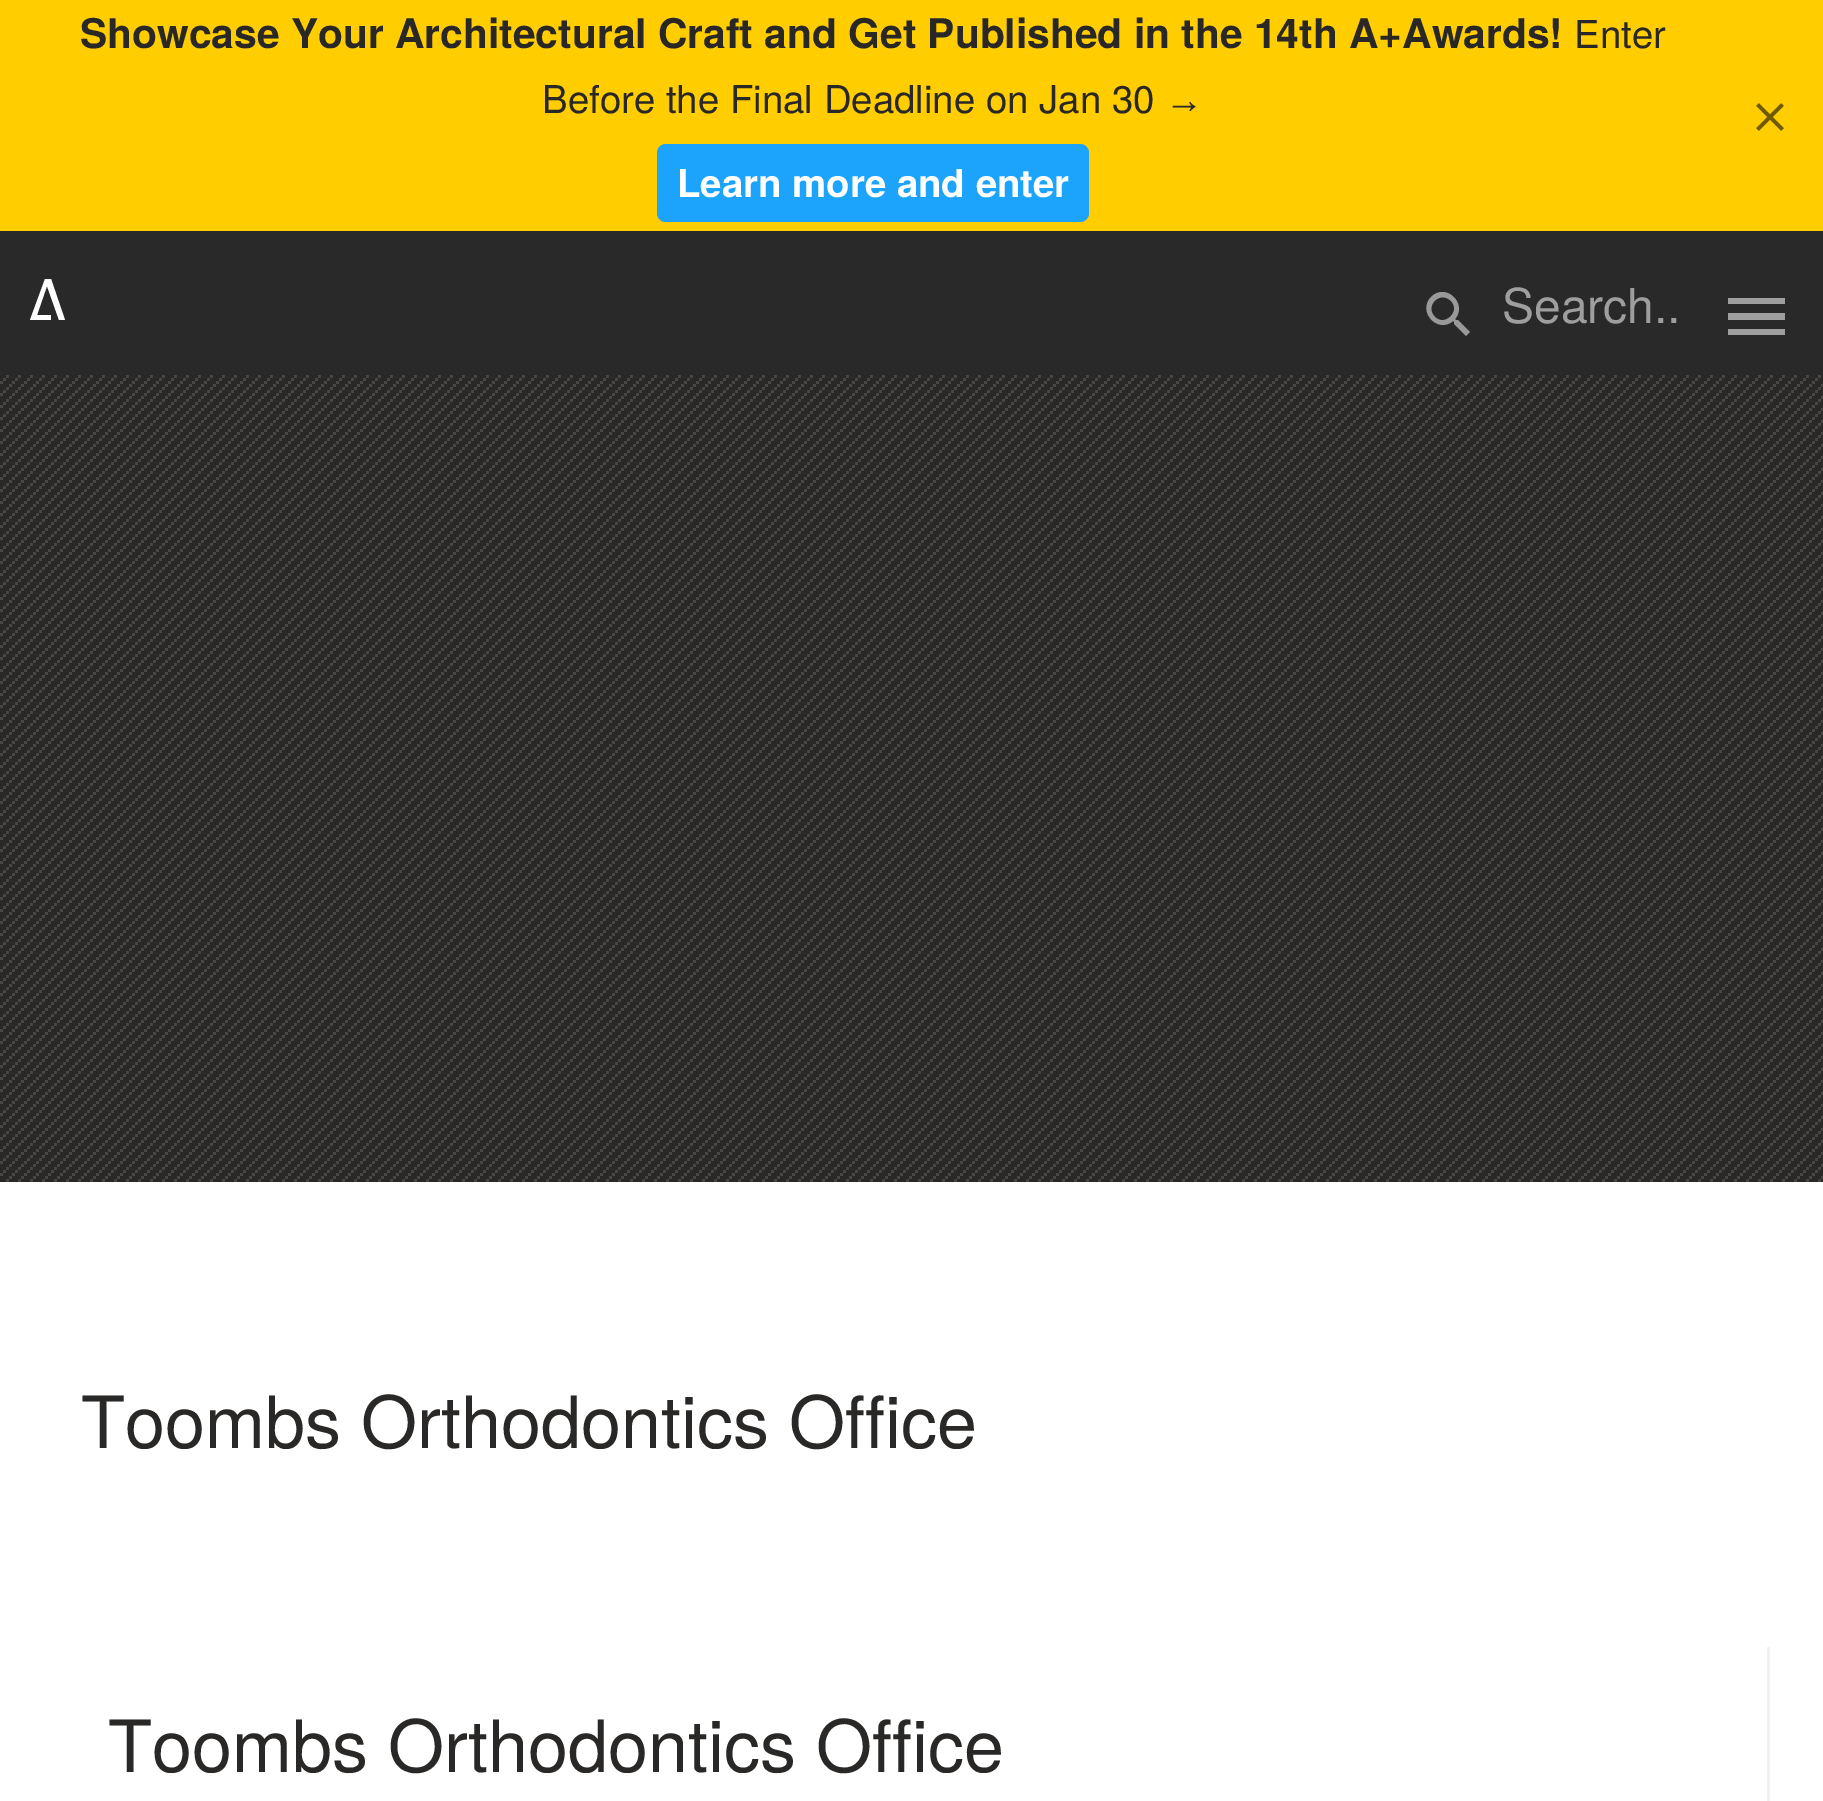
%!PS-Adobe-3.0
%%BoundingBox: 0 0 1823 1801
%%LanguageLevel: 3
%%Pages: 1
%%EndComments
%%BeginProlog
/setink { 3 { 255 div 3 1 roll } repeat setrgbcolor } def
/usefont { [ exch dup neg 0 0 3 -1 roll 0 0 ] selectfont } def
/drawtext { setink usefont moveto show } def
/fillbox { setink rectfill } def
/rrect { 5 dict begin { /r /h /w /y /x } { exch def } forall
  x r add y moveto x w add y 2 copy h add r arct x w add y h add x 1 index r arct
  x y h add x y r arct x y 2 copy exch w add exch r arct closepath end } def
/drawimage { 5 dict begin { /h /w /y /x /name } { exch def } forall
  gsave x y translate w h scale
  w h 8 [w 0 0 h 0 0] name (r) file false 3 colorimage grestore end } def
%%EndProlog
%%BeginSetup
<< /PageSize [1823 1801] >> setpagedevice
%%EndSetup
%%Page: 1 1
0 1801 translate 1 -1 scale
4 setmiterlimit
0 0 1823 1801 255 255 255 fillbox
0 0 1823 231 255 205 0 fillbox
(Showcase Your Architectural Craft and Get Published in the 14th A+Awards!) 80 48 /TeXGyreHeros-Bold 40.8 41 40 39 drawtext
(Enter) 1574 48 /TeXGyreHeros-Regular 38.4 41 40 39 drawtext
(Before the Final Deadline on Jan 30) 542 113 /TeXGyreHeros-Regular 38.4 41 40 39 drawtext
(→) 1165 113 /LiberationSans-Regular 38.4 41 40 39 drawtext
28 163 252 setink
657 144 432 78 9 rrect fill
(Learn more and enter) 677 197 /TeXGyreHeros-Bold 38.4 255 255 255 drawtext
(assets/img1.rgb) 1756 103 28 28 drawimage
0 231 1823 144 41 41 41 fillbox
255 255 255 setink
59 320 moveto 47 286 lineto 37 315 lineto 51 315 lineto 51 320 lineto 30 320 lineto 45 279 lineto 51 279 lineto 65 320 lineto closepath fill
153 153 153 setink
1435 317 moveto 1445 327 1461 311 1451 301 curveto 1440 290 1424 306 1435 317 curveto closepath 1458 320 moveto 1470 332 lineto 1466 336 lineto 1454 324 lineto 1454 322 lineto 1453 321 lineto 1438 334 1417 312 1431 297 curveto 1446 282 1468 304 1455 319 curveto 1456 320 lineto closepath fill
(Search..) 1502 323 /TeXGyreHeros-Regular 48 158 158 158 drawtext
1728 298 moveto 1785 298 lineto 1785 304 lineto 1728 304 lineto closepath 1728 320 moveto 1728 313 lineto 1785 313 lineto 1785 320 lineto closepath 1728 335 moveto 1728 329 lineto 1785 329 lineto 1785 335 lineto closepath fill
(assets/img2.rgb) 0 375 1823 807 drawimage
(Toombs Orthodontics Office) 81 1448 /TeXGyreHeros-Regular 72 41 40 39 drawtext
1767 1647 3 154 242 242 242 fillbox
(Toombs Orthodontics Office) 108 1772 /TeXGyreHeros-Regular 72 41 40 39 drawtext
showpage
%%EOF
